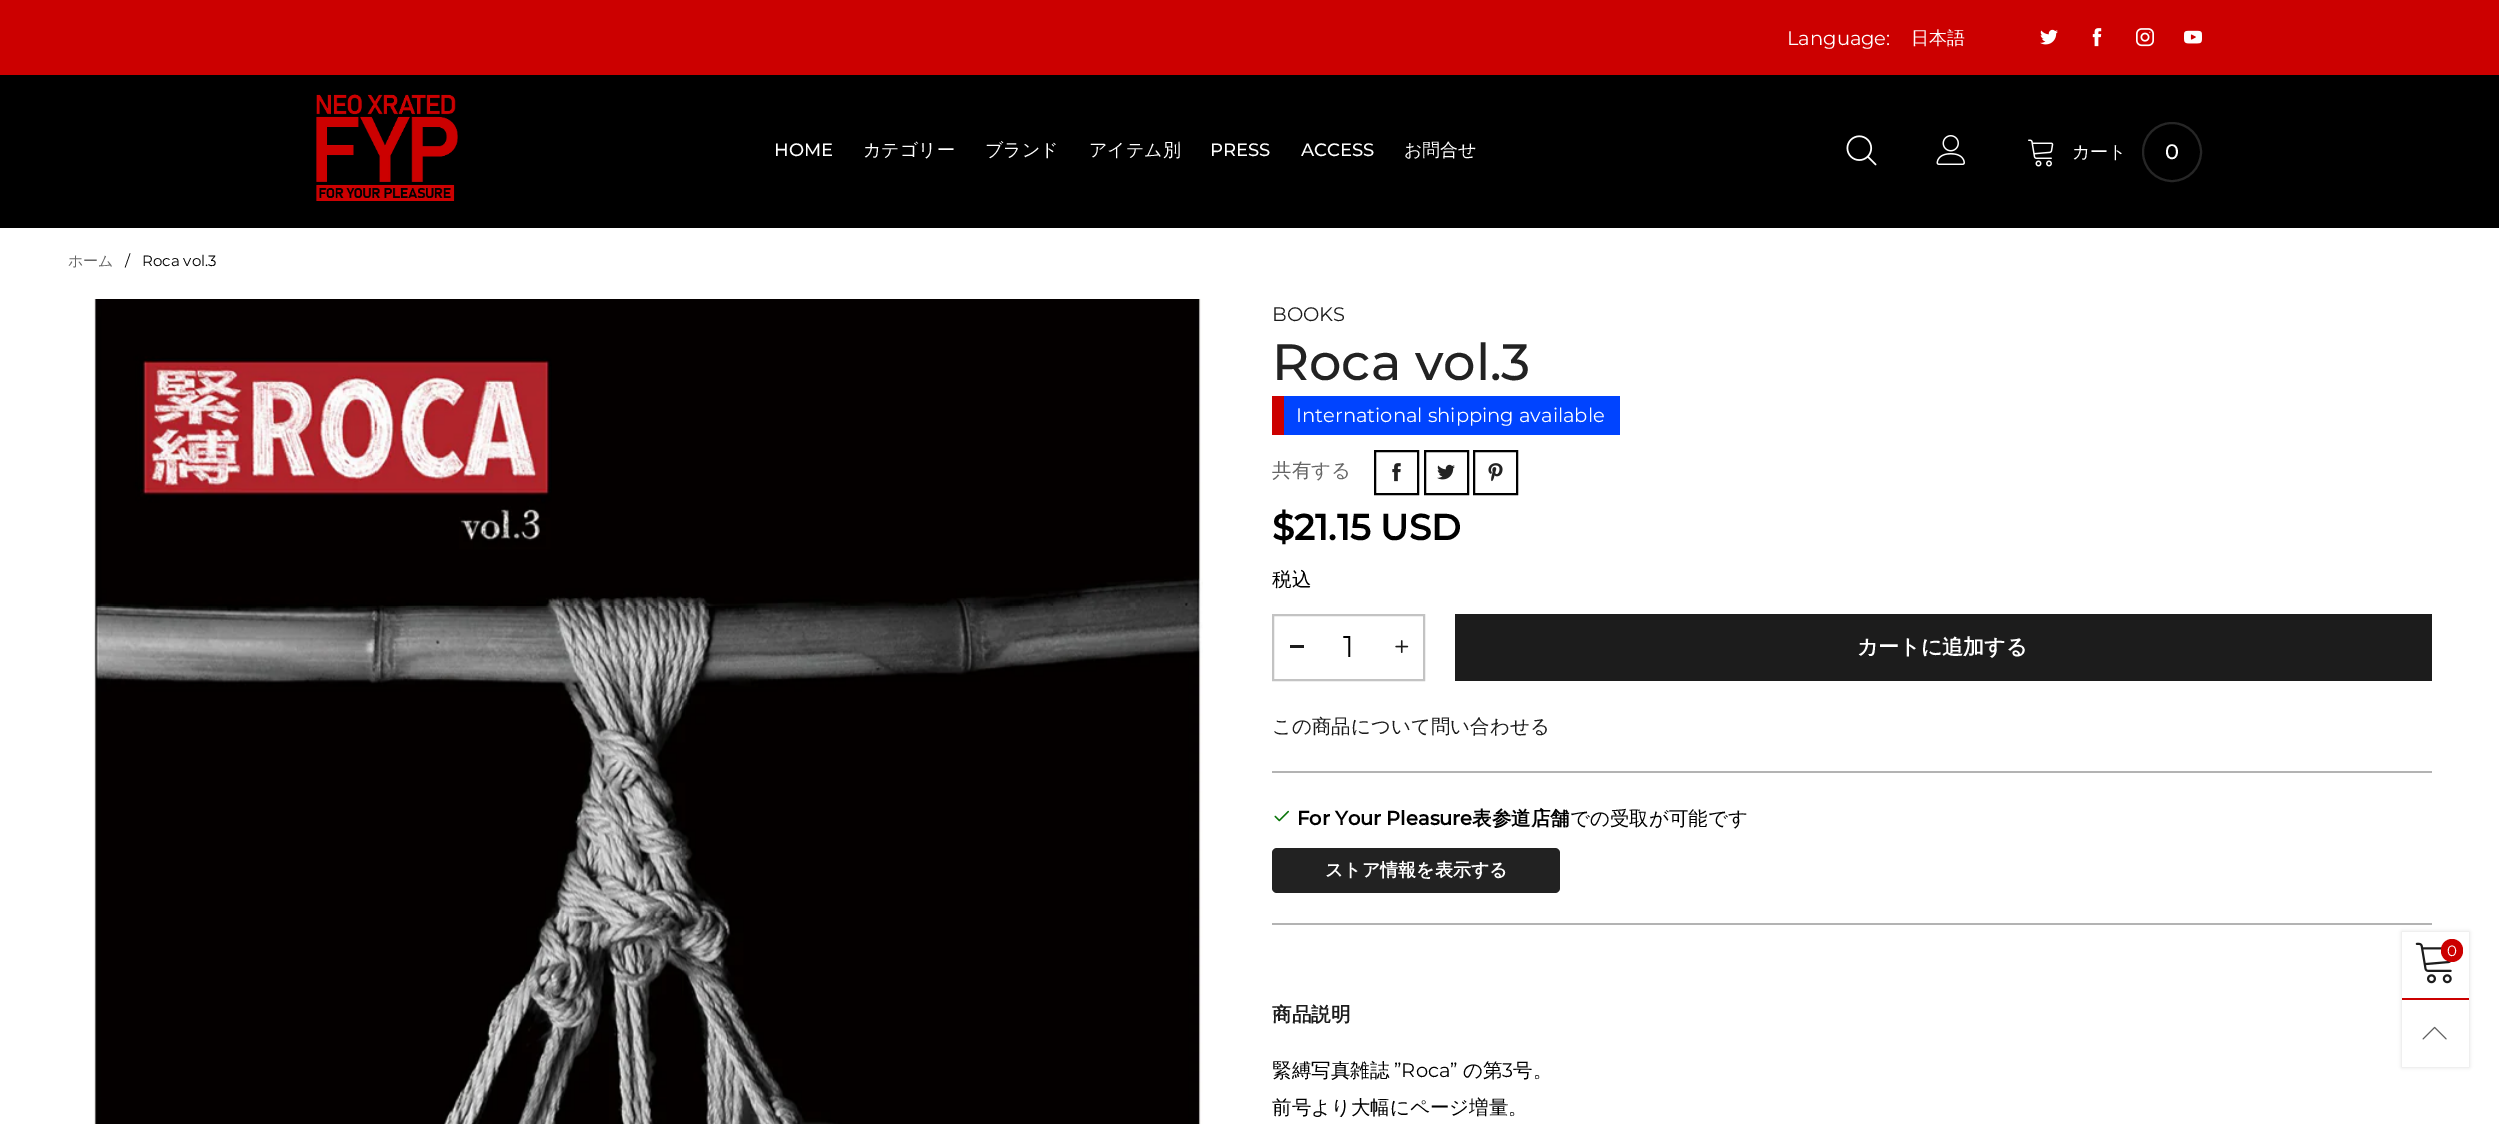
%!PS-Adobe-3.0
%%BoundingBox: 0 0 2499 1124
%%LanguageLevel: 3
%%Pages: 1
%%EndComments
%%BeginProlog
/setink { 3 { 255 div 3 1 roll } repeat setrgbcolor } def
/usefont { [ exch dup neg 0 0 3 -1 roll 0 0 ] selectfont } def
/drawtext { setink usefont moveto show } def
/fillbox { setink rectfill } def
/setalpha { dup .setfillconstantalpha .setstrokeconstantalpha } def
/disc { newpath 0 360 arc closepath } def
/rrect { 5 dict begin { /r /h /w /y /x } { exch def } forall
  x r add y moveto x w add y 2 copy h add r arct x w add y h add x 1 index r arct
  x y h add x y r arct x y 2 copy exch w add exch r arct closepath end } def
/softshadow { 12 dict begin { /a /b /q /h /w /y /x } { exch def } forall gsave /was 0 def
  9 -2 -9 { dup b mul 4 div /e exch def 1 sub .425 mul 2.718 exch exp 1 add a .99 .min exch div /now exch def
    1 1 now sub 1 was sub div sub setalpha /was now def
    w h .min e 2 mul add 0 gt { x e sub y e sub w e 2 mul add h e 2 mul add
      q e add b .6 mul add w h .min 2 div e add .min 0 .max rrect fill } if } for grestore end } def
/drawimage { 5 dict begin { /h /w /y /x /name } { exch def } forall
  gsave x y translate w h scale
  w h 8 [w 0 0 h 0 0] name (r) file false 3 colorimage grestore end } def
%%EndProlog
%%BeginSetup
<< /PageSize [2499 1124] /PageUsesTransparency true >> setpagedevice
%%EndSetup
%%Page: 1 1
0 .pushpdf14devicefilter
0 1124 translate 1 -1 scale
4 setmiterlimit
0 0 2499 1124 255 255 255 fillbox
0 0 2499 75 204 0 0 fillbox
(Language:) 1787 45 /Montserrat-Regular 19.5 255 255 255 drawtext
(日本語) 1911 44 /WenQuanYiZenHei-Medium 18 255 255 255 drawtext
(assets/img1.rgb) 2040 29 18 16 drawimage
(assets/img2.rgb) 2092 28 10 19 drawimage
(assets/img3.rgb) 2136 28 18 19 drawimage
(assets/img4.rgb) 2184 30 18 14 drawimage
0 75 2499 153 0 0 0 fillbox
(assets/img5.rgb) 316 94 142 107 drawimage
(HOME) 774 156 /Montserrat-Medium 18 255 255 255 drawtext
(カテゴリー) 863 156 /WenQuanYiZenHei-Medium 18 255 255 255 drawtext
(ブランド) 985 156 /WenQuanYiZenHei-Medium 18 255 255 255 drawtext
(アイテム別) 1089 156 /WenQuanYiZenHei-Medium 18 255 255 255 drawtext
(PRESS) 1210 156 /Montserrat-Medium 18 255 255 255 drawtext
(ACCESS) 1301 156 /Montserrat-Medium 18 255 255 255 drawtext
(お問合せ) 1404 156 /WenQuanYiZenHei-Medium 18 255 255 255 drawtext
(assets/img6.rgb) 1846 135 31 31 drawimage
(assets/img7.rgb) 1936 135 29 30 drawimage
(assets/img8.rgb) 2028 139 26 28 drawimage
(カート) 2072 158 /WenQuanYiZenHei-Medium 18 255 255 255 drawtext
38 38 38 setink
2 setlinewidth
2172 152 29 disc stroke
(0) 2165 159 /Montserrat-Medium 21 255 255 255 drawtext
(ホーム) 68 266 /WenQuanYiZenHei-Medium 15 102 102 102 drawtext
(/) 125 266 /Montserrat-Regular 15 0 0 0 drawtext
(Roca vol.3) 142 266 /Montserrat-Regular 15 0 0 0 drawtext
(assets/img9.rgb) 94 299 1109 825 drawimage
(BOOKS) 1272 321 /Montserrat-Regular 19.5 28 28 28 drawtext
(Roca vol.3) 1272 380 /Montserrat-Medium 51 34 34 34 drawtext
1284 396 336 39 0 68 255 fillbox
1272 396 12 39 204 0 0 fillbox
(International shipping available) 1296 422 /Montserrat-Regular 19.5 255 255 255 drawtext
(共有する) 1272 477 /WenQuanYiZenHei-Medium 19.5 102 102 102 drawtext
0 0 0 setink
1375 451 43 43 rectstroke
(assets/img10.rgb) 1392 463 9 19 drawimage
1425 451 43 43 rectstroke
(assets/img11.rgb) 1437 464 18 16 drawimage
1474 451 43 43 rectstroke
(assets/img12.rgb) 1488 463 15 19 drawimage
($21.15 USD) 1272 540 /Montserrat-Bold 36 0 0 0 drawtext
(税込) 1272 586 /WenQuanYiZenHei-Medium 19.5 0 0 0 drawtext
195 195 195 setink
1273 615 151 65 rectstroke
1290 645 14 3 28 28 28 fillbox
(1) 1343 657 /Montserrat-Regular 30 0 0 0 drawtext
(assets/img13.rgb) 1395 640 14 13 drawimage
1455 614 977 67 28 28 28 fillbox
(カートに追加する) 1857 654 /WenQuanYiZenHei-Bold 21 255 255 255 drawtext
(この商品について問い合わせる) 1272 733 /WenQuanYiZenHei-Medium 19.5 28 28 28 drawtext
1272 771 1160 2 179 179 179 fillbox
(assets/img14.rgb) 1274 810 15 12 drawimage
(For Your Pleasure) 1297 825 /Montserrat-Bold 19.5 0 0 0 drawtext
(表参道店舗) 1472 825 /WenQuanYiZenHei-Bold 19.5 0 0 0 drawtext
(での受取が可能です) 1570 825 /WenQuanYiZenHei-Medium 19.5 0 0 0 drawtext
34 34 34 setink
1272 848 288 45 5 rrect fill
(ストア情報を表示する) 1325 876 /WenQuanYiZenHei-Bold 18 255 255 255 drawtext
1272 923 1160 2 179 179 179 fillbox
(商品説明) 1272 1021 /WenQuanYiZenHei-Bold 19.5 28 28 28 drawtext
(緊縛写真雑誌) 1272 1077 /WenQuanYiZenHei-Medium 19.5 0 0 0 drawtext
(”Roca”) 1394 1077 /Montserrat-Regular 19.5 0 0 0 drawtext
(の第) 1463 1077 /WenQuanYiZenHei-Medium 19.5 0 0 0 drawtext
(3) 1502 1077 /Montserrat-Regular 19.5 0 0 0 drawtext
(号。) 1513 1077 /WenQuanYiZenHei-Medium 19.5 0 0 0 drawtext
(前号より大幅にページ増量。) 1272 1114 /WenQuanYiZenHei-Medium 19.5 0 0 0 drawtext
2402 932 67 135 0 2 0.15 softshadow
2402 932 67 135 255 255 255 fillbox
2402 998 67 2 204 0 0 fillbox
(assets/img15.rgb) 2415 942 37 42 drawimage
2441 939 22 23 11 rrect fill
(0) 2447 956 /Montserrat-Regular 15 255 255 255 drawtext
(assets/img16.rgb) 2422 1026 25 14 drawimage
.poppdf14devicefilter showpage
%%EOF
